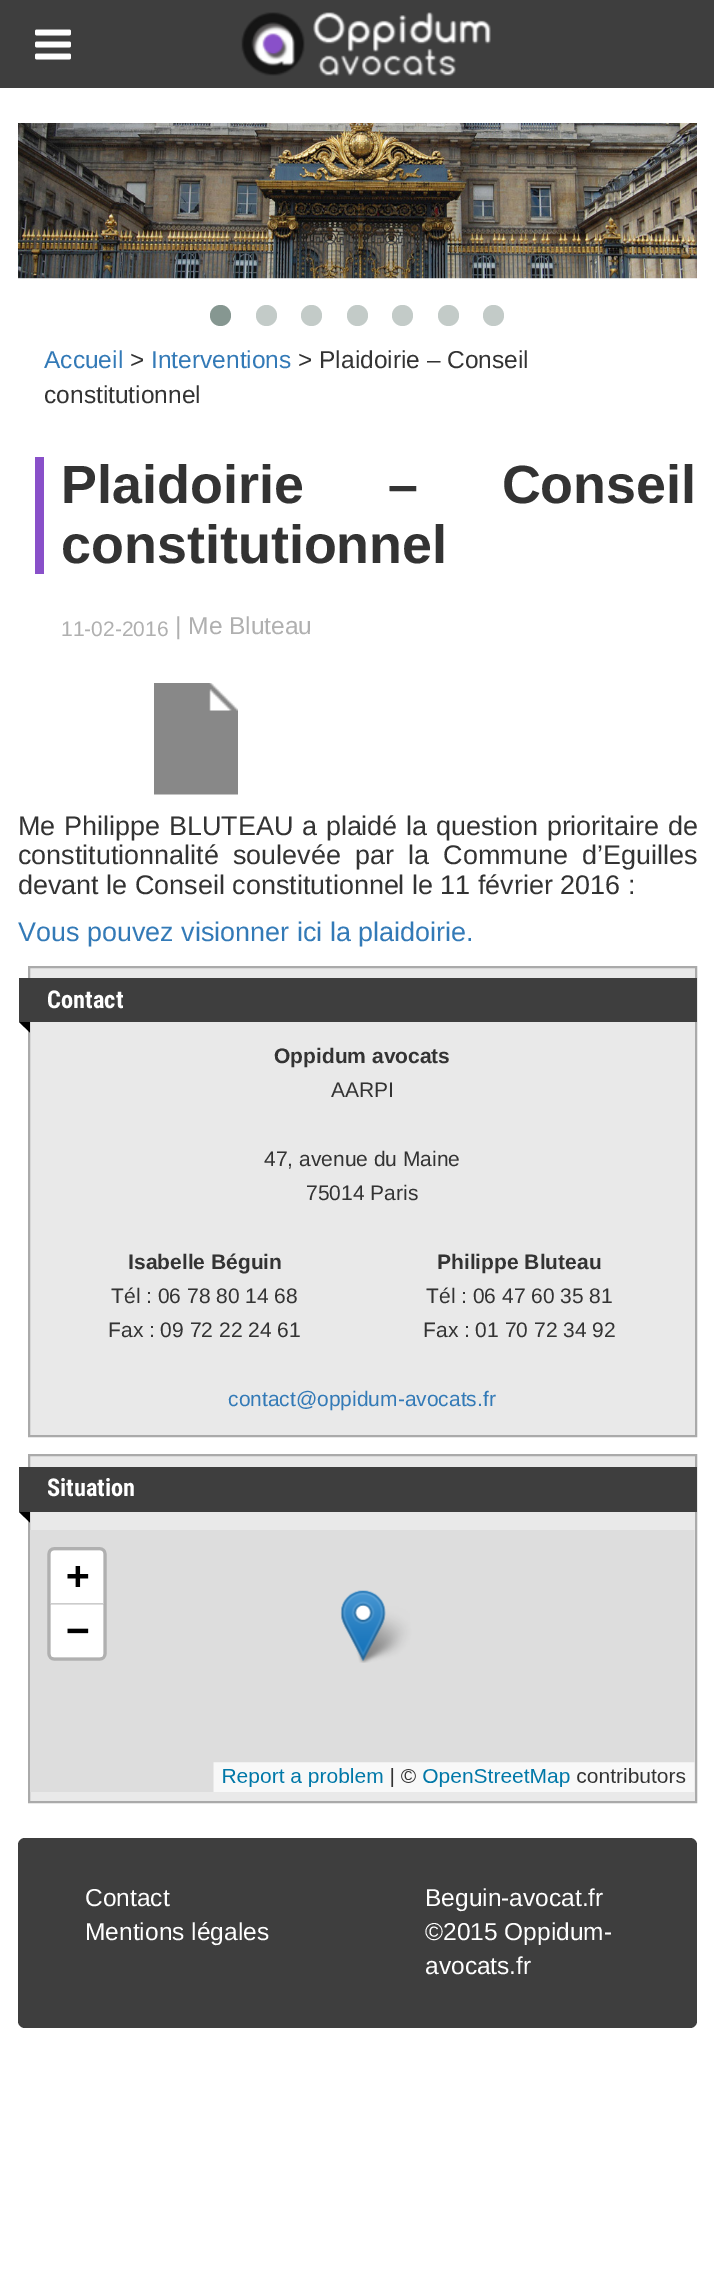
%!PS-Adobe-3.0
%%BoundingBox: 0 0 714 2296
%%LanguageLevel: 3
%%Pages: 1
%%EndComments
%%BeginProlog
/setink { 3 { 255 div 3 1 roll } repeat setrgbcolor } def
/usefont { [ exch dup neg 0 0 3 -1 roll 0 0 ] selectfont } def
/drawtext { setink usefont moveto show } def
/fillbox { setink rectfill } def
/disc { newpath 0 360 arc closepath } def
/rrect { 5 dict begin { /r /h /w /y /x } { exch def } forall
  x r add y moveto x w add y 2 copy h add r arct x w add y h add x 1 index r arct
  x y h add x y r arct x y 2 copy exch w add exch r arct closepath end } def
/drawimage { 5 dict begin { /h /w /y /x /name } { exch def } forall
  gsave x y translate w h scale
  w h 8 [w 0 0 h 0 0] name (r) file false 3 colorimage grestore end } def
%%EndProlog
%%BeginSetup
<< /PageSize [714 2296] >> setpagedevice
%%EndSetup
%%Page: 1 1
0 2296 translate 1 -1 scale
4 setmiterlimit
0 0 714 2296 255 255 255 fillbox
0 0 714 88 62 62 62 fillbox
(assets/img1.rgb) 35 29 36 31 drawimage
(assets/img2.rgb) 241 12 250 64 drawimage
(assets/img3.rgb) 18 123 679 156 drawimage
134 151 145 setink
220.5 315.5 10.5 disc fill
195 203 200 setink
266.5 315.5 10.5 disc fill
311.5 315.5 10.5 disc fill
357.5 315.5 10.5 disc fill
402.5 315.5 10.5 disc fill
448.5 315.5 10.5 disc fill
493.5 315.5 10.5 disc fill
(Accueil) 44 368 /LiberationSans-Regular 24.5 51 122 183 drawtext
(>) 130 368 /LiberationSans-Regular 24.5 51 51 51 drawtext
(Interventions) 151 368 /LiberationSans-Regular 24.5 51 122 183 drawtext
(> Plaidoirie – Conseil) 298 368 /LiberationSans-Regular 24.5 51 51 51 drawtext
(constitutionnel) 44 403 /LiberationSans-Regular 24.5 51 51 51 drawtext
35 457 9 117 137 80 201 fillbox
/LiberationSans-Bold 53.9 usefont
51 51 51 setink
61 503 moveto 69 0 32 (Plaidoirie – Conseil) widthshow
(constitutionnel) 61 563 /LiberationSans-Bold 53.9 51 51 51 drawtext
(11-02-2016) 61 636 /LiberationSans-Regular 21 176 176 176 drawtext
(| Me Bluteau) 175 634 /LiberationSans-Regular 24.5 176 176 176 drawtext
(assets/img4.rgb) 154 683 84 112 drawimage
/LiberationSans-Regular 26.95 usefont
51 51 51 setink
18 835 moveto 1.25 0 32 (Me Philippe BLUTEAU a plaidé la question prioritaire de) widthshow
18 864 moveto 6.75 0 32 (constitutionnalité soulevée par la Commune d’Eguilles) widthshow
(devant le Conseil constitutionnel le 11 février 2016 :) 18 894 /LiberationSans-Regular 26.95 51 51 51 drawtext
(Vous pouvez visionner ici la plaidoirie.) 18 941 /LiberationSans-Regular 26.95 51 122 183 drawtext
233 233 233 setink
29 967 moveto 696 967 lineto 696 1436 lineto 29 1436 lineto closepath gsave fill grestore
170 170 170 setink
2 setlinewidth
stroke
19 978 678 44 62 62 62 fillbox
(Contact) 47 1008 /RobotoCondensed-Bold 24.5 255 255 255 drawtext
0 0 0 setink
30 1022 moveto 30 1032.5 lineto 19 1022 lineto closepath fill
(Oppidum avocats) 274 1063 /LiberationSans-Bold 21 51 51 51 drawtext
(AARPI) 331 1097 /LiberationSans-Regular 21 51 51 51 drawtext
(47, avenue du Maine) 264 1166 /LiberationSans-Regular 21 51 51 51 drawtext
(75014 Paris) 306 1200 /LiberationSans-Regular 21 51 51 51 drawtext
(Isabelle Béguin) 128 1269 /LiberationSans-Bold 21 51 51 51 drawtext
(Tél : 06 78 80 14 68) 111 1303 /LiberationSans-Regular 21 51 51 51 drawtext
(Fax : 09 72 22 24 61) 108 1337 /LiberationSans-Regular 21 51 51 51 drawtext
(Philippe Bluteau) 437 1269 /LiberationSans-Bold 21 51 51 51 drawtext
(Tél : 06 47 60 35 81) 426 1303 /LiberationSans-Regular 21 51 51 51 drawtext
(Fax : 01 70 72 34 92) 423 1337 /LiberationSans-Regular 21 51 51 51 drawtext
(contact@oppidum-avocats.fr) 228 1406 /LiberationSans-Regular 21 51 122 183 drawtext
233 233 233 setink
29 1455 moveto 696 1455 lineto 696 1802 lineto 29 1802 lineto closepath gsave fill grestore
170 170 170 setink
stroke
19 1467 678 45 62 62 62 fillbox
(Situation) 47 1496 /RobotoCondensed-Bold 24.5 255 255 255 drawtext
0 0 0 setink
30 1512 moveto 30 1522.5 lineto 19 1512 lineto closepath fill
(assets/img5.rgb) 30 1530 665 262 drawimage
62 62 62 setink
18 1838 679 190 7 rrect fill
(Contact) 85 1906 /LiberationSans-Regular 24.5 255 255 255 drawtext
(Mentions légales) 85 1940 /LiberationSans-Regular 24.5 255 255 255 drawtext
(Beguin-avocat.fr) 425 1906 /LiberationSans-Regular 24.5 255 255 255 drawtext
(©2015 Oppidum-) 425 1940 /LiberationSans-Regular 24.5 255 255 255 drawtext
(avocats.fr) 425 1974 /LiberationSans-Regular 24.5 255 255 255 drawtext
showpage
%%EOF
